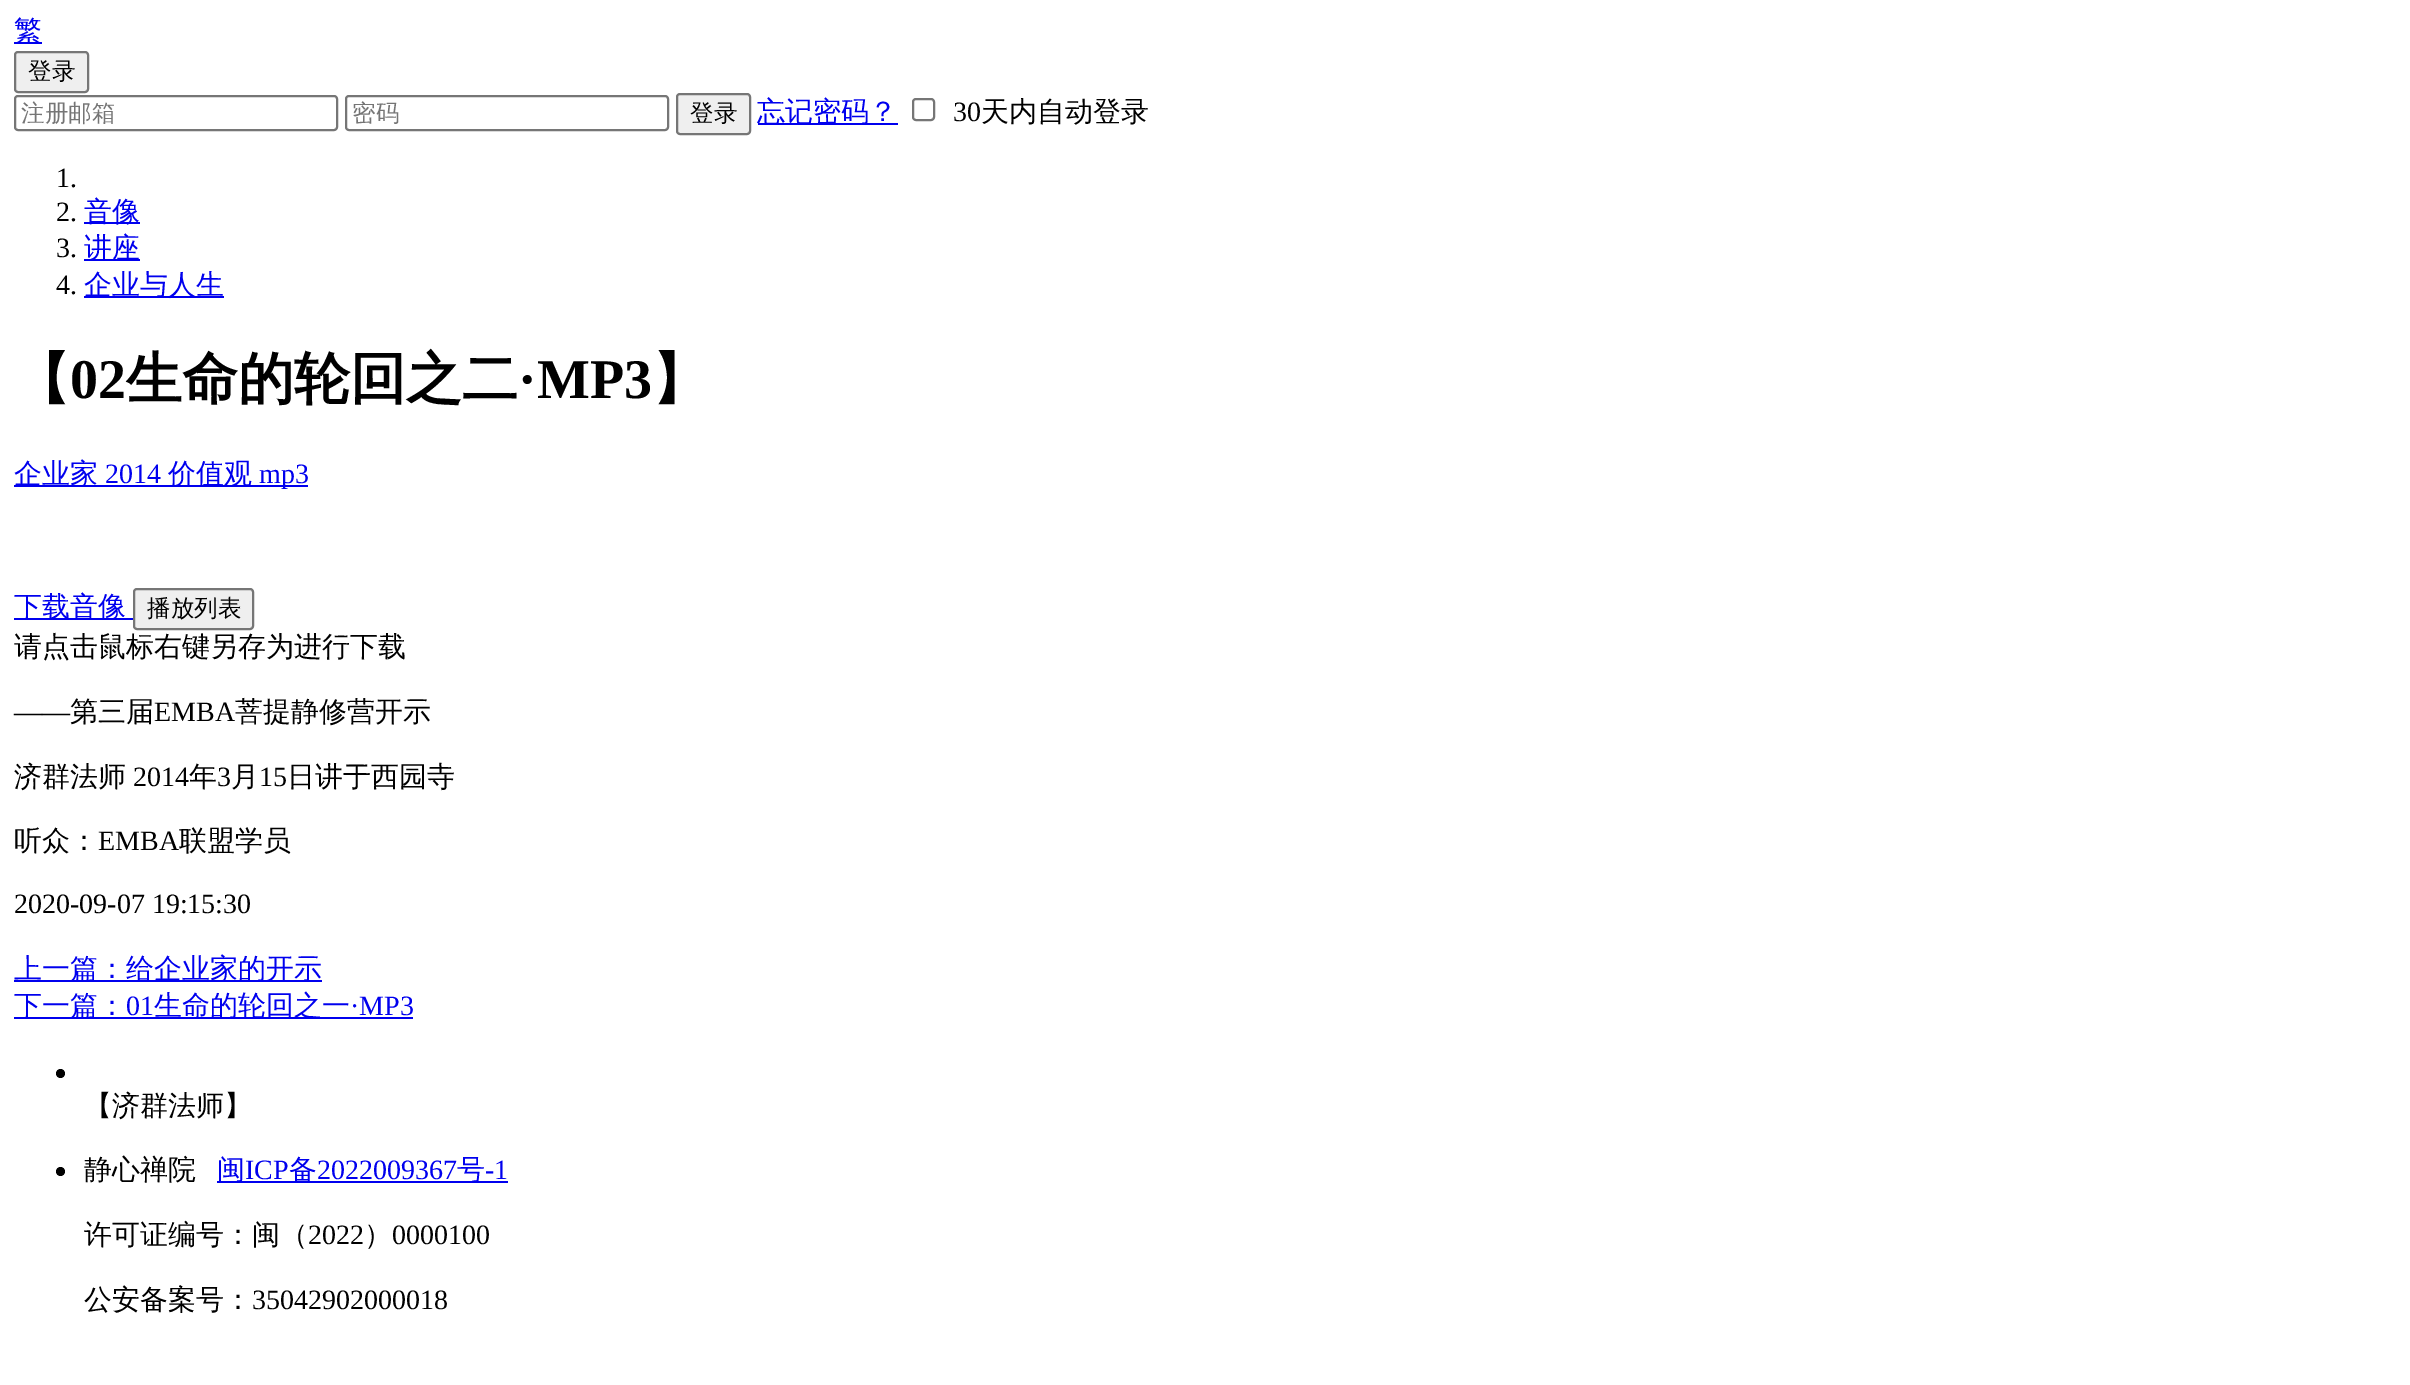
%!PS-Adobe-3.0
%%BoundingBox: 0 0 2410 1385
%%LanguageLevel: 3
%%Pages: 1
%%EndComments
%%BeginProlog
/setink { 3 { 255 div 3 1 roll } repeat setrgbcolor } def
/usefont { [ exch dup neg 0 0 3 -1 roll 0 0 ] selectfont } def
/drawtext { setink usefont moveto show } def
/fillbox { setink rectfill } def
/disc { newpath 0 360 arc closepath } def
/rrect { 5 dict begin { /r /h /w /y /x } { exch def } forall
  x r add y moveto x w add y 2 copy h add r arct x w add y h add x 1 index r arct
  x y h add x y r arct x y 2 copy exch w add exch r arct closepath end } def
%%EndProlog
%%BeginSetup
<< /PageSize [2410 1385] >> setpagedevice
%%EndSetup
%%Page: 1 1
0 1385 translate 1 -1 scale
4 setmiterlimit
0 0 2410 1385 255 255 255 fillbox
14 42 28 2 0 0 238 fillbox
(繁) 14 40 /WenQuanYiZenHei-Medium 28 0 0 238 drawtext
239 239 239 setink
15 52 73 40 3 rrect gsave fill grestore
118 118 118 setink
2 setlinewidth
stroke
(登录) 28 79 /WenQuanYiZenHei-Medium 23.5 0 0 0 drawtext
118 118 118 setink
15 96 322 34 3 rrect stroke
(注册邮箱) 21 121 /WenQuanYiZenHei-Medium 23.5 117 117 117 drawtext
118 118 118 setink
346 96 322 34 3 rrect stroke
(密码) 352 121 /WenQuanYiZenHei-Medium 23.5 117 117 117 drawtext
239 239 239 setink
677 94 73 40 3 rrect gsave fill grestore
118 118 118 setink
stroke
(登录) 690 121 /WenQuanYiZenHei-Medium 23.5 0 0 0 drawtext
758 123 140 2 0 0 238 fillbox
(忘记密码？) 757 121 /WenQuanYiZenHei-Medium 28 0 0 238 drawtext
118 118 118 setink
913 99 21 21 3 rrect stroke
(30) 953 121 /LiberationSerif-Regular 28 0 0 0 drawtext
(天内自动登录) 981 121 /WenQuanYiZenHei-Medium 28 0 0 0 drawtext
(1.) 56 187 /LiberationSerif-Regular 28 0 0 0 drawtext
(2.) 56 221 /LiberationSerif-Regular 28 0 0 0 drawtext
84 222 56 2 0 0 238 fillbox
(音像) 84 221 /WenQuanYiZenHei-Medium 28 0 0 238 drawtext
(3.) 56 257 /LiberationSerif-Regular 28 0 0 0 drawtext
84 259 56 2 0 0 238 fillbox
(讲座) 84 257 /WenQuanYiZenHei-Medium 28 0 0 238 drawtext
(4.) 56 294 /LiberationSerif-Regular 28 0 0 0 drawtext
84 296 140 2 0 0 238 fillbox
(企业与人生) 84 294 /WenQuanYiZenHei-Medium 28 0 0 238 drawtext
(【) 14 398 /WenQuanYiZenHei-Bold 56 0 0 0 drawtext
(02) 70 398 /LiberationSerif-Bold 56 0 0 0 drawtext
(生命的轮回之二) 126 398 /WenQuanYiZenHei-Bold 56 0 0 0 drawtext
(·MP3) 518 398 /LiberationSerif-Bold 56 0 0 0 drawtext
(】) 652 398 /WenQuanYiZenHei-Bold 56 0 0 0 drawtext
14 485 294 2 0 0 238 fillbox
(企业家) 14 483 /WenQuanYiZenHei-Medium 28 0 0 238 drawtext
(2014) 105 483 /LiberationSerif-Regular 28 0 0 238 drawtext
(价值观) 168 483 /WenQuanYiZenHei-Medium 28 0 0 238 drawtext
(mp3) 259 483 /LiberationSerif-Regular 28 0 0 238 drawtext
14 618 119 2 0 0 238 fillbox
(下载音像) 14 616 /WenQuanYiZenHei-Medium 28 0 0 238 drawtext
239 239 239 setink
134 589 119 40 3 rrect gsave fill grestore
118 118 118 setink
stroke
(播放列表) 147 616 /WenQuanYiZenHei-Medium 23.5 0 0 0 drawtext
(请点击鼠标右键另存为进行下载) 14 656 /WenQuanYiZenHei-Medium 28 0 0 0 drawtext
(——) 14 721 /LiberationSerif-Regular 28 0 0 0 drawtext
(第三届) 70 721 /WenQuanYiZenHei-Medium 28 0 0 0 drawtext
(EMBA) 154 721 /LiberationSerif-Regular 28 0 0 0 drawtext
(菩提静修营开示) 235 721 /WenQuanYiZenHei-Medium 28 0 0 0 drawtext
(济群法师) 14 786 /WenQuanYiZenHei-Medium 28 0 0 0 drawtext
(2014) 133 786 /LiberationSerif-Regular 28 0 0 0 drawtext
(年) 189 786 /WenQuanYiZenHei-Medium 28 0 0 0 drawtext
(3) 217 786 /LiberationSerif-Regular 28 0 0 0 drawtext
(月) 231 786 /WenQuanYiZenHei-Medium 28 0 0 0 drawtext
(15) 259 786 /LiberationSerif-Regular 28 0 0 0 drawtext
(日讲于西园寺) 287 786 /WenQuanYiZenHei-Medium 28 0 0 0 drawtext
(听众：) 14 850 /WenQuanYiZenHei-Medium 28 0 0 0 drawtext
(EMBA) 98 850 /LiberationSerif-Regular 28 0 0 0 drawtext
(联盟学员) 179 850 /WenQuanYiZenHei-Medium 28 0 0 0 drawtext
(2020-09-07 19:15:30) 14 913 /LiberationSerif-Regular 28 0 0 0 drawtext
14 980 308 2 0 0 238 fillbox
(上一篇：给企业家的开示) 14 978 /WenQuanYiZenHei-Medium 28 0 0 238 drawtext
14 1017 399 2 0 0 238 fillbox
(下一篇：) 14 1015 /WenQuanYiZenHei-Medium 28 0 0 238 drawtext
(01) 126 1015 /LiberationSerif-Regular 28 0 0 238 drawtext
(生命的轮回之一) 154 1015 /WenQuanYiZenHei-Medium 28 0 0 238 drawtext
(·MP3) 350 1015 /LiberationSerif-Regular 28 0 0 238 drawtext
0 0 0 setink
60.5 1073.5 4.5 disc fill
(【济群法师】) 84 1115 /WenQuanYiZenHei-Medium 28 0 0 0 drawtext
60.5 1171.5 4.5 disc fill
(静心禅院) 84 1179 /WenQuanYiZenHei-Medium 28 0 0 0 drawtext
217 1181 291 2 0 0 238 fillbox
(闽) 217 1179 /WenQuanYiZenHei-Medium 28 0 0 238 drawtext
(ICP) 245 1179 /LiberationSerif-Regular 28 0 0 238 drawtext
(备) 289 1179 /WenQuanYiZenHei-Medium 28 0 0 238 drawtext
(2022009367) 317 1179 /LiberationSerif-Regular 28 0 0 238 drawtext
(号) 457 1179 /WenQuanYiZenHei-Medium 28 0 0 238 drawtext
(-1) 485 1179 /LiberationSerif-Regular 28 0 0 238 drawtext
(许可证编号：闽（) 84 1244 /WenQuanYiZenHei-Medium 28 0 0 0 drawtext
(2022) 308 1244 /LiberationSerif-Regular 28 0 0 0 drawtext
(）) 364 1244 /WenQuanYiZenHei-Medium 28 0 0 0 drawtext
(0000100) 392 1244 /LiberationSerif-Regular 28 0 0 0 drawtext
(公安备案号：) 84 1309 /WenQuanYiZenHei-Medium 28 0 0 0 drawtext
(35042902000018) 252 1309 /LiberationSerif-Regular 28 0 0 0 drawtext
showpage
%%EOF
